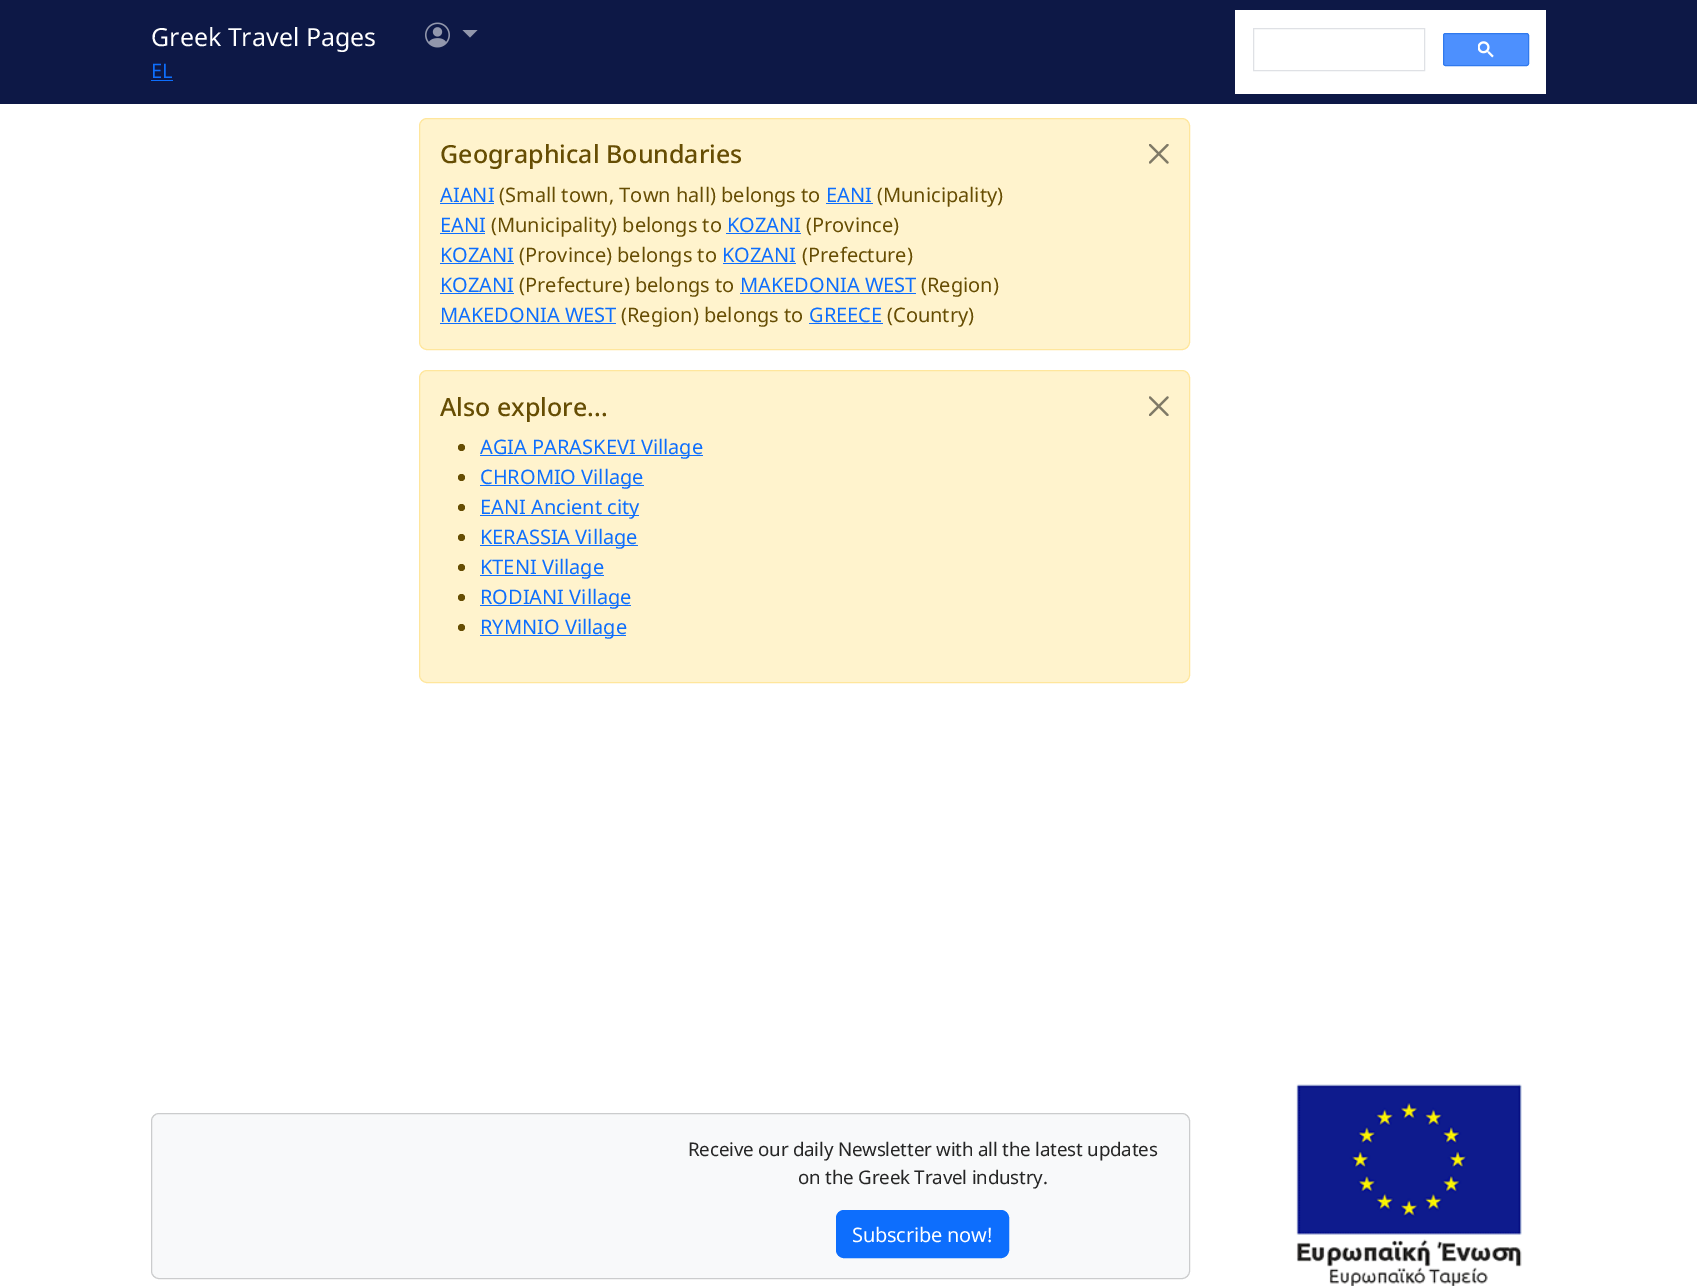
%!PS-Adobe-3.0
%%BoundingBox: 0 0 1697 1286
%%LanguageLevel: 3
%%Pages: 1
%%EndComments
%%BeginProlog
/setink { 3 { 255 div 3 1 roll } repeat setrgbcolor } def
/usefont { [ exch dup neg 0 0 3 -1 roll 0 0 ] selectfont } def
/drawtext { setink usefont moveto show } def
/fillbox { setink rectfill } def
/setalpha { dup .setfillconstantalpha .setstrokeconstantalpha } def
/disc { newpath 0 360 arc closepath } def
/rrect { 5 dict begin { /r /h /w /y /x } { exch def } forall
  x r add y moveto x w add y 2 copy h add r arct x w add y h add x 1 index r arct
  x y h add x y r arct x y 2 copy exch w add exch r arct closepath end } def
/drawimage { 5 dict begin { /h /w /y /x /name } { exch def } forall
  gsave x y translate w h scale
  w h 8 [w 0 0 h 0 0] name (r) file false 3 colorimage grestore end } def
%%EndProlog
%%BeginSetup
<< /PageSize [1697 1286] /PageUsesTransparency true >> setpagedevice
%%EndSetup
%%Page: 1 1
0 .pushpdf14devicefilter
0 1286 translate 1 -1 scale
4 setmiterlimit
0 0 1697 1286 255 255 255 fillbox
0 0 1697 104 13 24 70 fillbox
(Greek Travel Pages) 151 46 /NotoSans-Regular 25 255 255 255 drawtext
(EL) 151 78 /NotoSans-Regular 20 13 110 253 drawtext
151 80 22 1 13 110 253 fillbox
(assets/img1.rgb) 425 22 25 26 drawimage
146 151 172 setink
462.5 30 moveto 477.5 30 lineto 470 37.5 lineto closepath fill
1235 10 311 84 255 255 255 fillbox
223 225 229 setink
1253.5 28.5 171 42 rectstroke
77 144 254 setink
1443.5 33.5 85 32 2 rrect gsave fill grestore
48 121 237 setink
stroke
(assets/img2.rgb) 1478 41 16 17 drawimage
255 243 205 setink
419.5 118.5 770 231 7.5 rrect gsave fill grestore
255 230 156 setink
stroke
(Geographical Boundaries) 440 163 /NotoSans-Medium 25 102 77 3 drawtext
(assets/img3.rgb) 1149 144 20 20 drawimage
(AIANI) 440 202 /NotoSans-Regular 20 13 110 253 drawtext
440 203 54 1 13 110 253 fillbox
(\(Small town, Town hall\) belongs to) 499 202 /NotoSans-Regular 20 102 77 3 drawtext
(EANI) 826 202 /NotoSans-Regular 20 13 110 253 drawtext
826 203 47 1 13 110 253 fillbox
(\(Municipality\)) 877 202 /NotoSans-Regular 20 102 77 3 drawtext
(EANI) 440 232 /NotoSans-Regular 20 13 110 253 drawtext
440 233 45 1 13 110 253 fillbox
(\(Municipality\) belongs to) 491 232 /NotoSans-Regular 20 102 77 3 drawtext
(KOZANI) 727 232 /NotoSans-Regular 20 13 110 253 drawtext
726 233 75 1 13 110 253 fillbox
(\(Province\)) 806 232 /NotoSans-Regular 20 102 77 3 drawtext
(KOZANI) 440 262 /NotoSans-Regular 20 13 110 253 drawtext
440 263 74 1 13 110 253 fillbox
(\(Province\) belongs to) 519 262 /NotoSans-Regular 20 102 77 3 drawtext
(KOZANI) 722 262 /NotoSans-Regular 20 13 110 253 drawtext
723 263 73 1 13 110 253 fillbox
(\(Prefecture\)) 802 262 /NotoSans-Regular 20 102 77 3 drawtext
(KOZANI) 440 292 /NotoSans-Regular 20 13 110 253 drawtext
440 293 74 1 13 110 253 fillbox
(\(Prefecture\) belongs to) 519 292 /NotoSans-Regular 20 102 77 3 drawtext
(MAKEDONIA WEST) 740 292 /NotoSans-Regular 20 13 110 253 drawtext
740 293 176 1 13 110 253 fillbox
(\(Region\)) 921 292 /NotoSans-Regular 20 102 77 3 drawtext
(MAKEDONIA WEST) 440 322 /NotoSans-Regular 20 13 110 253 drawtext
440 323 176 1 13 110 253 fillbox
(\(Region\) belongs to) 621 322 /NotoSans-Regular 20 102 77 3 drawtext
(GREECE) 809 322 /NotoSans-Regular 20 13 110 253 drawtext
809 323 74 1 13 110 253 fillbox
(\(Country\)) 887 322 /NotoSans-Regular 20 102 77 3 drawtext
255 243 205 setink
419.5 370.5 770 312 7.5 rrect gsave fill grestore
255 230 156 setink
stroke
(Also explore...) 440 416 /NotoSans-Medium 25 102 77 3 drawtext
(assets/img4.rgb) 1149 396 20 20 drawimage
461.5 447.5 3.5 disc fill
480 455 223 1 13 110 253 fillbox
(AGIA PARASKEVI Village) 480 454 /NotoSans-Regular 20 13 110 253 drawtext
102 77 3 setink
461.5 477.5 3.5 disc fill
480 485 164 1 13 110 253 fillbox
(CHROMIO Village) 480 484 /NotoSans-Regular 20 13 110 253 drawtext
102 77 3 setink
461.5 507.5 3.5 disc fill
480 515 159 1 13 110 253 fillbox
(EANI Ancient city) 480 514 /NotoSans-Regular 20 13 110 253 drawtext
102 77 3 setink
461.5 537.5 3.5 disc fill
480 545 158 1 13 110 253 fillbox
(KERASSIA Village) 480 544 /NotoSans-Regular 20 13 110 253 drawtext
102 77 3 setink
461.5 567.5 3.5 disc fill
480 575 124 1 13 110 253 fillbox
(KTENI Village) 480 574 /NotoSans-Regular 20 13 110 253 drawtext
102 77 3 setink
461.5 597.5 3.5 disc fill
480 605 151 1 13 110 253 fillbox
(RODIANI Village) 480 604 /NotoSans-Regular 20 13 110 253 drawtext
102 77 3 setink
461.5 627.5 3.5 disc fill
480 635 146 1 13 110 253 fillbox
(RYMNIO Village) 480 634 /NotoSans-Regular 20 13 110 253 drawtext
248 249 250 setink
151 1113 1039 166 8 rrect fill
0.18 setalpha
0 0 0 setink
151.5 1113.5 1038 165 7.5 rrect stroke
/NotoSans-Regular 18.75 usefont
1 setalpha
38 38 38 setink
688 1156 moveto -0.2 0 (Receive our daily Newsletter with all the latest updates) ashow
798 1184 moveto -0.2 0 (on the Greek Travel industry.) ashow
13 110 253 setink
836.5 1210.5 172 47 7.5 rrect gsave fill grestore
stroke
/NotoSans-Regular 20 usefont
255 255 255 setink
852 1242 moveto -0.2 0 (Subscribe now!) ashow
(assets/img5.rgb) 1296 1084 226 202 drawimage
.poppdf14devicefilter showpage
%%EOF
